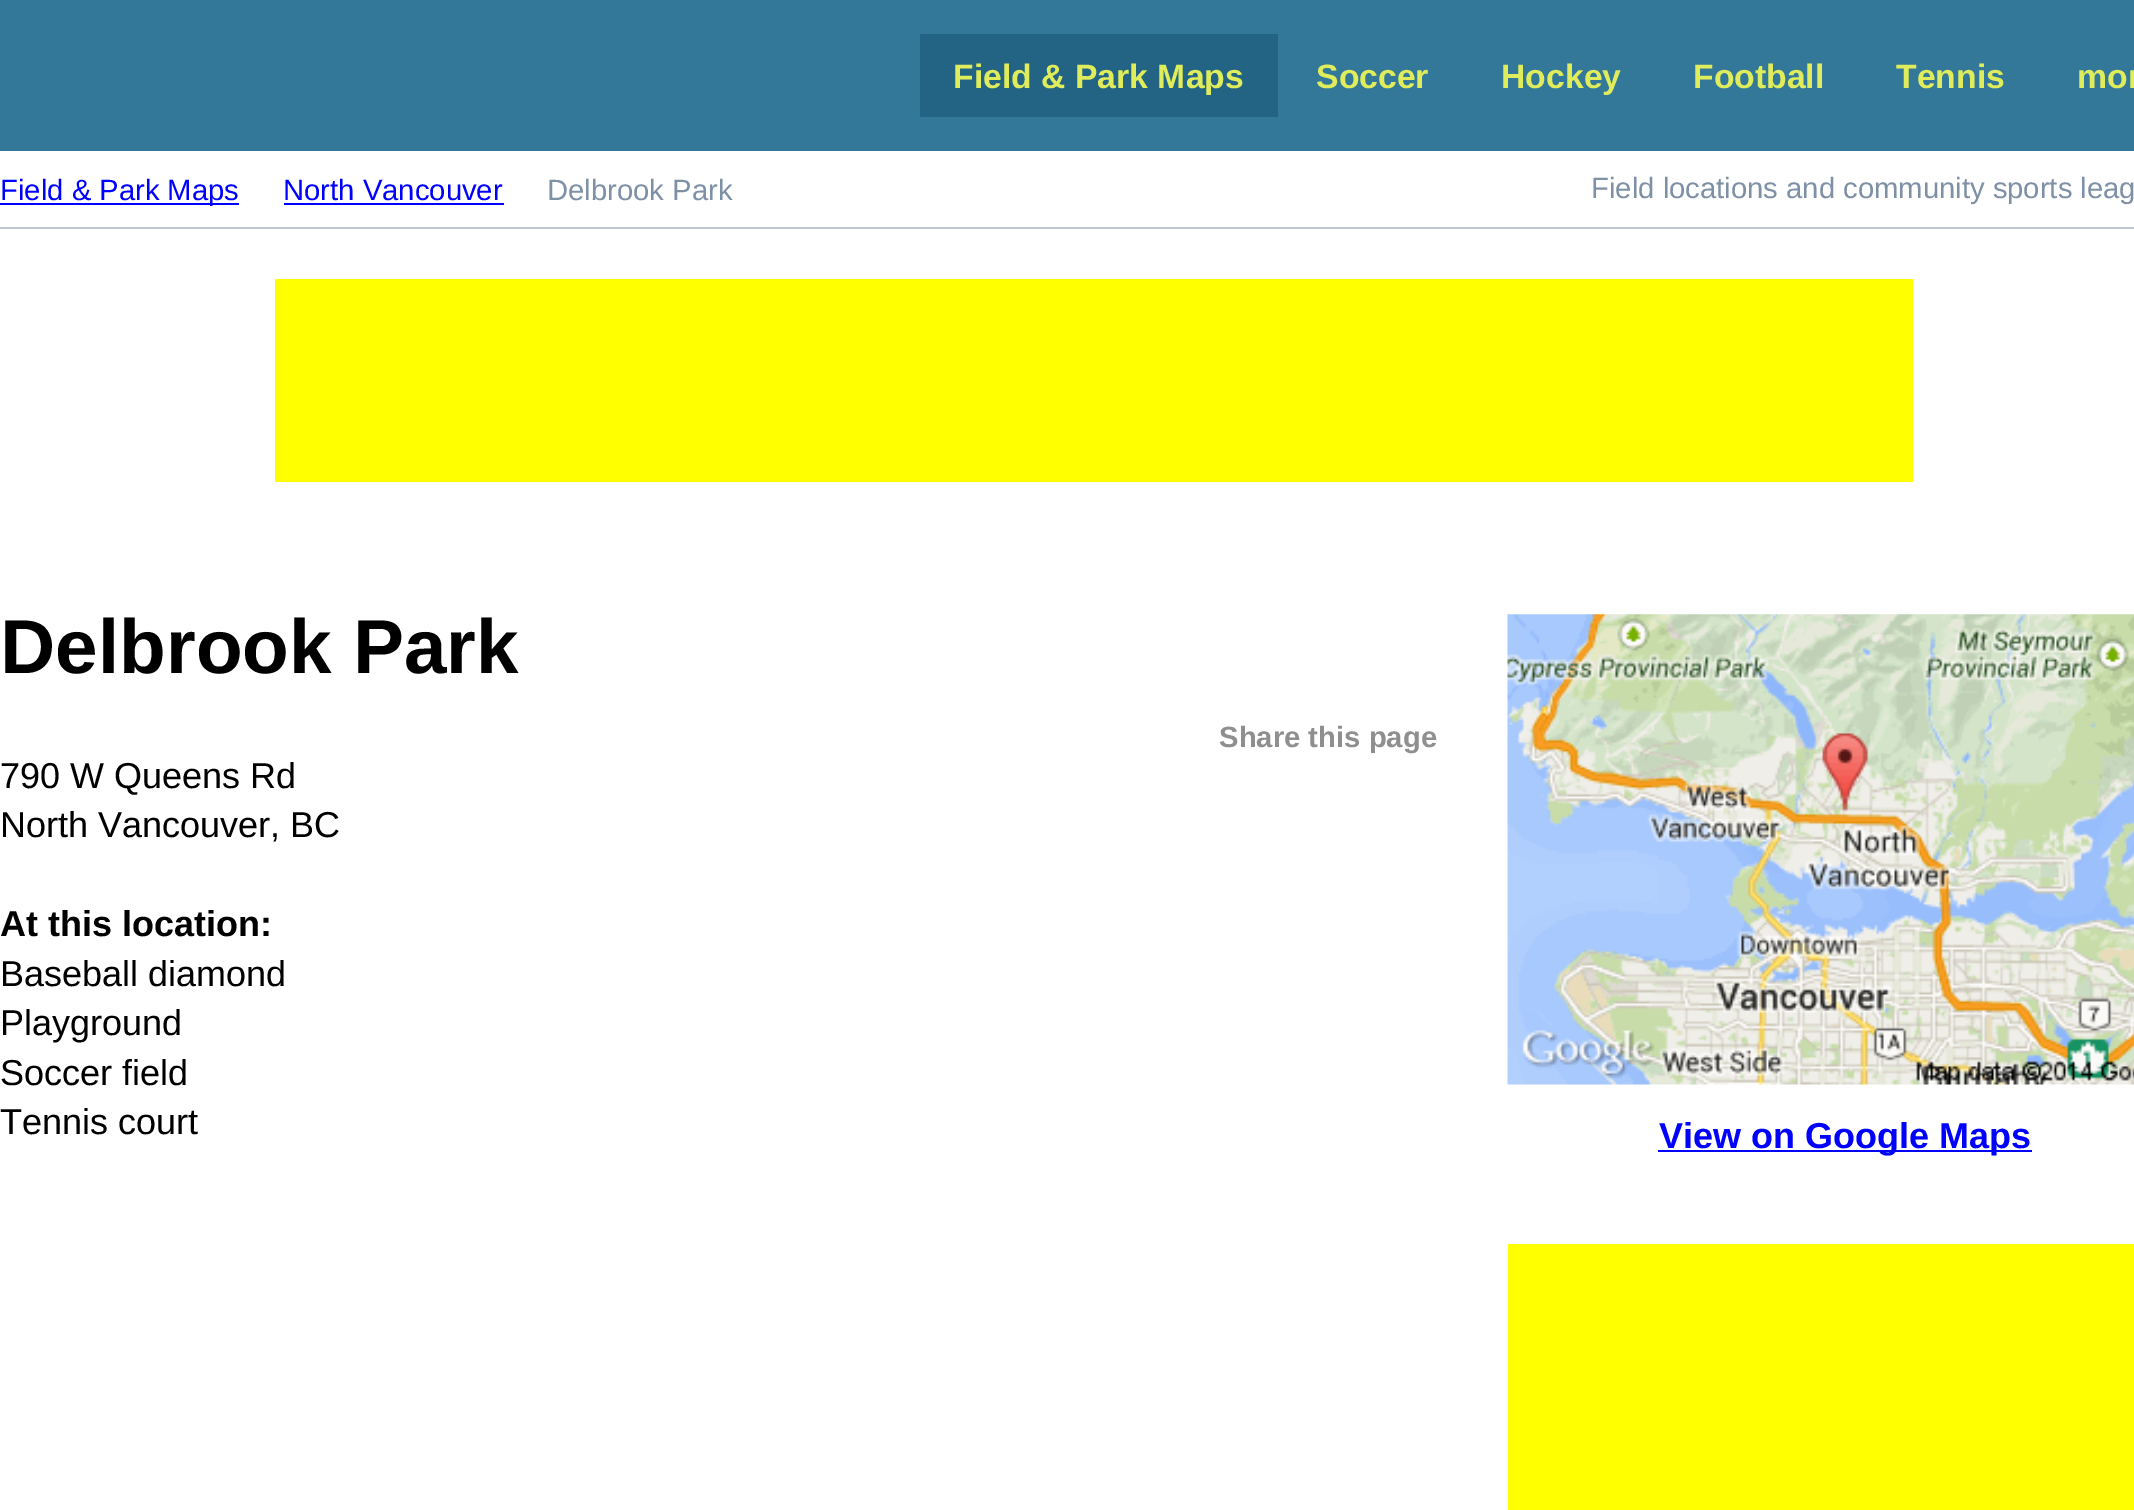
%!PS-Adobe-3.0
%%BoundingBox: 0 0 2134 1510
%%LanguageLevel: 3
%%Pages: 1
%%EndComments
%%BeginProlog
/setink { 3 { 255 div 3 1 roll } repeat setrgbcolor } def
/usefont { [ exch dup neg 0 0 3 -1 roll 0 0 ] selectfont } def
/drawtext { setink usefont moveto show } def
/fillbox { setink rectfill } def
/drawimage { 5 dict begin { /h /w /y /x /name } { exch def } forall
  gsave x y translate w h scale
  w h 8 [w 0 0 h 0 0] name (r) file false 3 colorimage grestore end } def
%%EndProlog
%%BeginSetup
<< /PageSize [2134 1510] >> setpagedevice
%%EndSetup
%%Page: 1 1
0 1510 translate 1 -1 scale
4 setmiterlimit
0 0 2134 1510 255 255 255 fillbox
0 0 2134 151 51 119 153 fillbox
920 34 358 83 35 100 132 fillbox
(Field & Park Maps) 953 88 /LiberationSans-Bold 33.75 223 236 91 drawtext
(Soccer) 1316 88 /LiberationSans-Bold 33.75 223 236 91 drawtext
(Hockey) 1501 88 /LiberationSans-Bold 33.75 223 236 91 drawtext
(Football) 1693 88 /LiberationSans-Bold 33.75 223 236 91 drawtext
(Tennis) 1896 88 /LiberationSans-Bold 33.75 223 236 91 drawtext
(mor) 2077 88 /LiberationSans-Bold 33.75 223 236 91 drawtext
(Field locations and community sports leag) 1591 198 /LiberationSans-Regular 29.25 125 144 166 drawtext
0 227 2134 2 190 200 211 fillbox
0 203 239 2 0 0 255 fillbox
(Field & Park Maps) 0 200 /LiberationSans-Regular 29.25 0 0 255 drawtext
(North Vancouver) 283 200 /LiberationSans-Regular 29.25 0 0 255 drawtext
284 203 220 2 0 0 255 fillbox
(Delbrook Park) 547 200 /LiberationSans-Regular 29.25 125 144 166 drawtext
275 279 1638 203 255 255 0 fillbox
(Delbrook Park) 0 673 /LiberationSans-Bold 76.5 0 0 0 drawtext
(790 W Queens Rd) 0 788 /LiberationSans-Regular 36 0 0 0 drawtext
(North Vancouver, BC) 0 837 /LiberationSans-Regular 36 0 0 0 drawtext
(At this location:) 0 936 /LiberationSans-Bold 36 0 0 0 drawtext
(Baseball diamond) 0 986 /LiberationSans-Regular 36 0 0 0 drawtext
(Playground) 0 1035 /LiberationSans-Regular 36 0 0 0 drawtext
(Soccer field) 0 1085 /LiberationSans-Regular 36 0 0 0 drawtext
(Tennis court) 0 1134 /LiberationSans-Regular 36 0 0 0 drawtext
(Share this page) 1219 747 /LiberationSans-Bold 29.25 143 143 143 drawtext
(assets/img1.rgb) 1507 614 627 471 drawimage
1658 1150 374 2 0 0 255 fillbox
(View on Google Maps) 1659 1148 /LiberationSans-Bold 36 0 0 255 drawtext
1508 1244 626 266 255 255 0 fillbox
showpage
%%EOF
